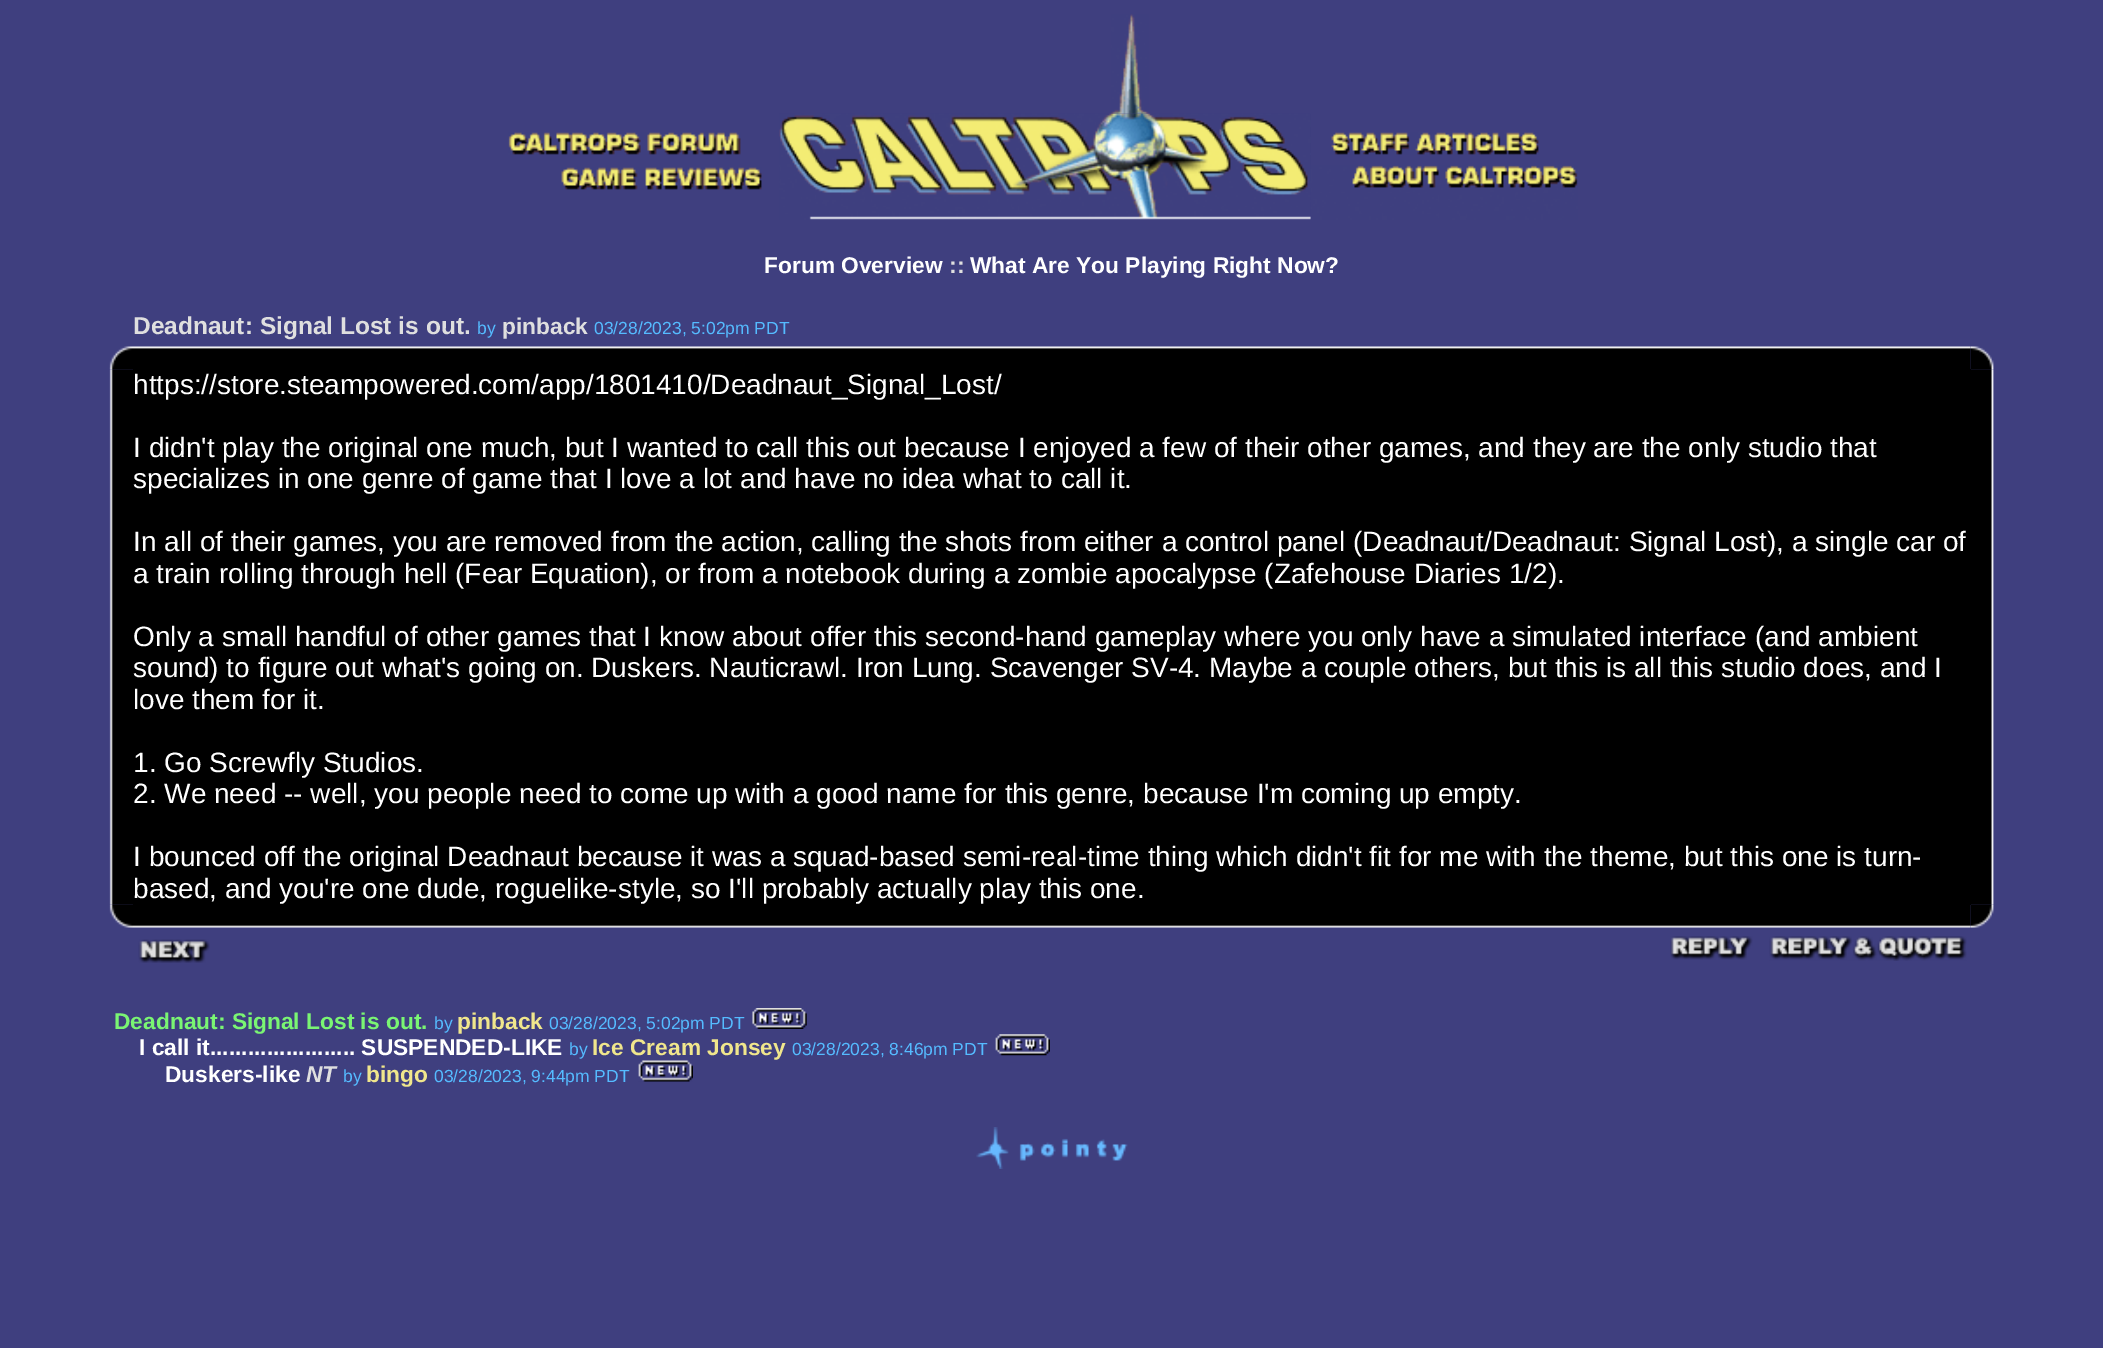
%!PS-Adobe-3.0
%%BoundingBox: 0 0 2103 1348
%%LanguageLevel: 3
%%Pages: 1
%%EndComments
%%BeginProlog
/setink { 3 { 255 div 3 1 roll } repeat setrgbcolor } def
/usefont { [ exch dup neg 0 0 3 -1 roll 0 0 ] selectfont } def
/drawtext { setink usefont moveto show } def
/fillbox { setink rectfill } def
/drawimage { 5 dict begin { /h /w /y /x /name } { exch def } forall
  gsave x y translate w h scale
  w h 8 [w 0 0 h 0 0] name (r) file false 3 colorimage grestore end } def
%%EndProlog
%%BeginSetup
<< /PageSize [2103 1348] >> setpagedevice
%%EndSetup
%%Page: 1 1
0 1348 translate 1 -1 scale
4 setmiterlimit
0 0 2103 1348 63 63 127 fillbox
(assets/img1.rgb) 1111 14 38 100 drawimage
(assets/img2.rgb) 508 132 233 23 drawimage
(assets/img3.rgb) 779 113 532 107 drawimage
(assets/img4.rgb) 1331 132 208 23 drawimage
(assets/img5.rgb) 561 167 201 23 drawimage
(assets/img6.rgb) 1310 165 268 55 drawimage
(Forum Overview) 764 273 /LiberationSans-Bold 22.75 255 255 255 drawtext
(::) 949 273 /LiberationSans-Bold 22.75 223 223 223 drawtext
(What Are You Playing Right Now?) 970 273 /LiberationSans-Bold 22.75 255 255 255 drawtext
(Deadnaut: Signal Lost is out.) 133 334 /LiberationSans-Bold 24.5 223 223 223 drawtext
(by) 477 334 /LiberationSans-Regular 17.5 85 187 255 drawtext
(pinback) 502 334 /LiberationSans-Bold 22.75 223 223 223 drawtext
(03/28/2023, 5:02pm PDT) 594 334 /LiberationSans-Regular 17.5 85 187 255 drawtext
(assets/img10.rgb) 109 369 24 536 drawimage
(assets/img7.rgb) 109 346 24 24 drawimage
(assets/img8.rgb) 133 346 1838 23 drawimage
133 369 1838 536 0 0 0 fillbox
(assets/img11.rgb) 1971 369 23 536 drawimage
(assets/img9.rgb) 1970 346 24 24 drawimage
(https://store.steampowered.com/app/1801410/Deadnaut_Signal_Lost/) 133 394 /LiberationSans-Regular 28 255 255 255 drawtext
(I didn't play the original one much, but I wanted to call this out because I enjoyed a few of their other games, and they are the only studio that) 133 457 /LiberationSans-Regular 28 255 255 255 drawtext
(specializes in one genre of game that I love a lot and have no idea what to call it.) 133 488 /LiberationSans-Regular 28 255 255 255 drawtext
(In all of their games, you are removed from the action, calling the shots from either a control panel \(Deadnaut/Deadnaut: Signal Lost\), a single car of) 133 551 /LiberationSans-Regular 28 255 255 255 drawtext
(a train rolling through hell \(Fear Equation\), or from a notebook during a zombie apocalypse \(Zafehouse Diaries 1/2\).) 133 583 /LiberationSans-Regular 28 255 255 255 drawtext
(Only a small handful of other games that I know about offer this second-hand gameplay where you only have a simulated interface \(and ambient) 133 646 /LiberationSans-Regular 28 255 255 255 drawtext
(sound\) to figure out what's going on. Duskers. Nauticrawl. Iron Lung. Scavenger SV-4. Maybe a couple others, but this is all this studio does, and I) 133 677 /LiberationSans-Regular 28 255 255 255 drawtext
(love them for it.) 133 709 /LiberationSans-Regular 28 255 255 255 drawtext
(1. Go Screwfly Studios.) 133 772 /LiberationSans-Regular 28 255 255 255 drawtext
(2. We need -- well, you people need to come up with a good name for this genre, because I'm coming up empty.) 133 803 /LiberationSans-Regular 28 255 255 255 drawtext
(I bounced off the original Deadnaut because it was a squad-based semi-real-time thing which didn't fit for me with the theme, but this one is turn-) 133 866 /LiberationSans-Regular 28 255 255 255 drawtext
(based, and you're one dude, roguelike-style, so I'll probably actually play this one.) 133 898 /LiberationSans-Regular 28 255 255 255 drawtext
(assets/img12.rgb) 109 904 24 24 drawimage
(assets/img13.rgb) 133 905 1838 23 drawimage
(assets/img14.rgb) 1970 904 24 24 drawimage
(assets/img15.rgb) 138 939 72 24 drawimage
(assets/img16.rgb) 1670 936 83 24 drawimage
(assets/img17.rgb) 1769 936 198 25 drawimage
(Deadnaut: Signal Lost is out.) 114 1029 /LiberationSans-Bold 22.75 122 245 115 drawtext
(by) 434 1029 /LiberationSans-Regular 17.5 85 187 255 drawtext
(pinback) 457 1029 /LiberationSans-Bold 22.75 240 230 140 drawtext
(03/28/2023, 5:02pm PDT) 549 1029 /LiberationSans-Regular 17.5 85 187 255 drawtext
(assets/img18.rgb) 752 1008 55 21 drawimage
(I call it....................... SUSPENDED-LIKE) 139 1055 /LiberationSans-Bold 22.75 255 255 255 drawtext
(by) 569 1055 /LiberationSans-Regular 17.5 85 187 255 drawtext
(Ice Cream Jonsey) 592 1055 /LiberationSans-Bold 22.75 240 230 140 drawtext
(03/28/2023, 8:46pm PDT) 792 1055 /LiberationSans-Regular 17.5 85 187 255 drawtext
(assets/img19.rgb) 995 1034 55 22 drawimage
(Duskers-like) 165 1082 /LiberationSans-Bold 22.75 255 255 255 drawtext
(NT) 306 1082 /LiberationSans-BoldItalic 22.75 223 223 223 drawtext
(by) 343 1082 /LiberationSans-Regular 17.5 85 187 255 drawtext
(bingo) 366 1082 /LiberationSans-Bold 22.75 240 230 140 drawtext
(03/28/2023, 9:44pm PDT) 434 1082 /LiberationSans-Regular 17.5 85 187 255 drawtext
(assets/img20.rgb) 638 1060 55 22 drawimage
(assets/img21.rgb) 976 1127 152 42 drawimage
showpage
%%EOF
